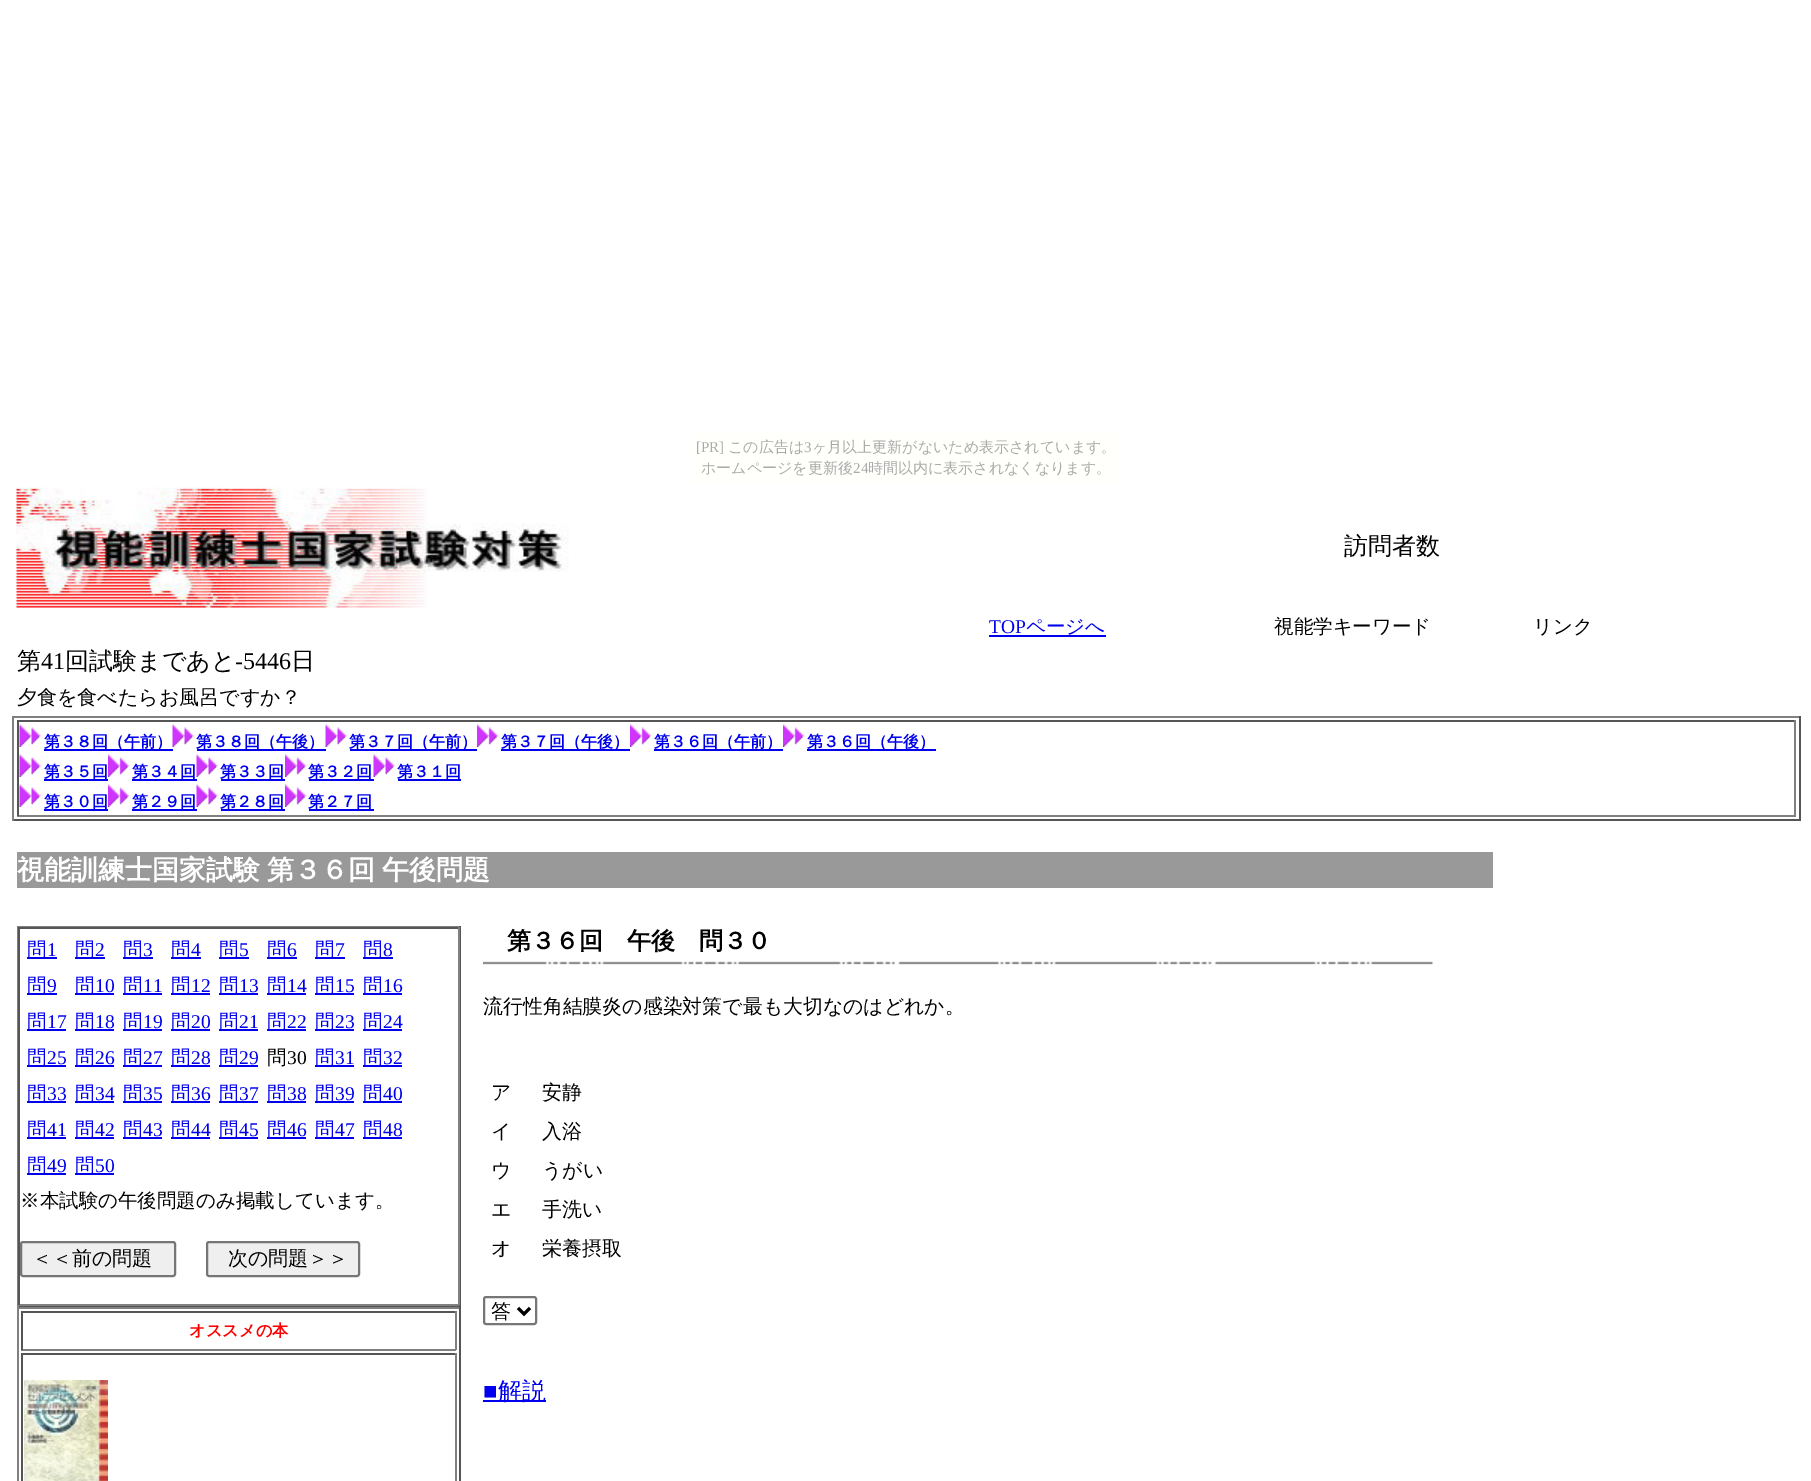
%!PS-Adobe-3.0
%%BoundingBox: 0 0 1811 1481
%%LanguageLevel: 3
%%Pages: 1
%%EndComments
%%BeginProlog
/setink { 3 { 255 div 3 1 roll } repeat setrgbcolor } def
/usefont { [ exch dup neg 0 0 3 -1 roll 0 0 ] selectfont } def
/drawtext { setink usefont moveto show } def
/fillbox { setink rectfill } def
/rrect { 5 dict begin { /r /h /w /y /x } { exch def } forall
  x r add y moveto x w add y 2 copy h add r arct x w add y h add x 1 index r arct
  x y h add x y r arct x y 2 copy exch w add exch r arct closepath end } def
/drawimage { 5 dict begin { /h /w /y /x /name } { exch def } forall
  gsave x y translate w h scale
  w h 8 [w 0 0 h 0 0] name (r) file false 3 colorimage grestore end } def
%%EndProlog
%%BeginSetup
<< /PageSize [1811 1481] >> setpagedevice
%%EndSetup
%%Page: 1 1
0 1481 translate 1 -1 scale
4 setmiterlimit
0 0 1811 1481 255 255 255 fillbox
692 432 429 51 255 255 252 fillbox
([PR]) 696 452 /LiberationSerif-Regular 15 170 170 170 drawtext
(この広告は) 728 452 /WenQuanYiZenHei-Medium 15 170 170 170 drawtext
(3) 804 452 /LiberationSerif-Regular 15 170 170 170 drawtext
(ヶ月以上更新がないため表示されています。) 812 452 /WenQuanYiZenHei-Medium 15 170 170 170 drawtext
(ホームページを更新後) 701 473 /WenQuanYiZenHei-Medium 15 170 170 170 drawtext
(24) 853 473 /LiberationSerif-Regular 15 170 170 170 drawtext
(時間以内に表示されなくなります。) 868 473 /WenQuanYiZenHei-Medium 15 170 170 170 drawtext
(assets/img1.rgb) 16 487 553 121 drawimage
(訪問者数) 1344 554 /WenQuanYiZenHei-Medium 24 0 0 0 drawtext
(TOP) 989 633 /LiberationSerif-Regular 19.5 0 0 238 drawtext
989 635 117 2 0 0 238 fillbox
(ページへ) 1026 633 /WenQuanYiZenHei-Medium 19.5 0 0 238 drawtext
(視能学キーワード) 1274 633 /WenQuanYiZenHei-Medium 19.5 0 0 0 drawtext
(リンク) 1533 633 /WenQuanYiZenHei-Medium 19.5 0 0 0 drawtext
(第) 17 669 /WenQuanYiZenHei-Medium 24 0 0 0 drawtext
(41) 41 669 /LiberationSerif-Regular 24 0 0 0 drawtext
(回試験まであと) 65 669 /WenQuanYiZenHei-Medium 24 0 0 0 drawtext
(-5446) 235 669 /LiberationSerif-Regular 24 0 0 0 drawtext
(日) 291 669 /WenQuanYiZenHei-Medium 24 0 0 0 drawtext
(夕食を食べたらお風呂ですか？) 17 704 /WenQuanYiZenHei-Medium 20 0 0 0 drawtext
12 716 1788 2 128 128 128 fillbox
1799 716 2 105 85 85 85 fillbox
12 819 1788 2 85 85 85 fillbox
12 716 2 105 128 128 128 fillbox
17 720 1779 2 85 85 85 fillbox
1794 720 2 96 128 128 128 fillbox
17 815 1779 2 128 128 128 fillbox
17 720 2 96 85 85 85 fillbox
(assets/img2.rgb) 19 724 22 23 drawimage
44 749 129 2 0 0 238 fillbox
(第３８回（午前）) 44 747 /WenQuanYiZenHei-Bold 16 0 0 238 drawtext
(assets/img2.rgb) 172 724 22 23 drawimage
197 749 129 2 0 0 238 fillbox
(第３８回（午後）) 196 747 /WenQuanYiZenHei-Bold 16 0 0 238 drawtext
(assets/img2.rgb) 325 724 22 23 drawimage
350 749 127 2 0 0 238 fillbox
(第３７回（午前）) 349 747 /WenQuanYiZenHei-Bold 16 0 0 238 drawtext
(assets/img3.rgb) 477 724 22 23 drawimage
501 749 129 2 0 0 238 fillbox
(第３７回（午後）) 501 747 /WenQuanYiZenHei-Bold 16 0 0 238 drawtext
(assets/img4.rgb) 630 724 22 23 drawimage
654 749 129 2 0 0 238 fillbox
(第３６回（午前）) 654 747 /WenQuanYiZenHei-Bold 16 0 0 238 drawtext
(assets/img4.rgb) 783 724 22 23 drawimage
807 749 129 2 0 0 238 fillbox
(第３６回（午後）) 807 747 /WenQuanYiZenHei-Bold 16 0 0 238 drawtext
(assets/img2.rgb) 19 754 22 23 drawimage
(第３５回) 44 777 /WenQuanYiZenHei-Bold 16 0 0 238 drawtext
44 779 64 2 0 0 238 fillbox
(assets/img4.rgb) 108 754 22 23 drawimage
(第３４回) 132 777 /WenQuanYiZenHei-Bold 16 0 0 238 drawtext
132 779 65 2 0 0 238 fillbox
(assets/img2.rgb) 196 754 22 23 drawimage
(第３３回) 220 777 /WenQuanYiZenHei-Bold 16 0 0 238 drawtext
221 779 64 2 0 0 238 fillbox
(assets/img3.rgb) 285 754 22 23 drawimage
(第３２回) 308 777 /WenQuanYiZenHei-Bold 16 0 0 238 drawtext
309 779 65 2 0 0 238 fillbox
(assets/img5.rgb) 373 754 22 23 drawimage
(第３１回) 397 777 /WenQuanYiZenHei-Bold 16 0 0 238 drawtext
398 779 63 2 0 0 238 fillbox
(assets/img2.rgb) 19 784 22 23 drawimage
(第３０回) 44 807 /WenQuanYiZenHei-Bold 16 0 0 238 drawtext
44 809 64 2 0 0 238 fillbox
(assets/img4.rgb) 108 784 22 23 drawimage
(第２９回) 132 807 /WenQuanYiZenHei-Bold 16 0 0 238 drawtext
132 809 65 2 0 0 238 fillbox
(assets/img2.rgb) 196 784 22 23 drawimage
(第２８回) 220 807 /WenQuanYiZenHei-Bold 16 0 0 238 drawtext
221 809 64 2 0 0 238 fillbox
(assets/img3.rgb) 285 784 22 23 drawimage
(第２７回) 308 807 /WenQuanYiZenHei-Bold 16 0 0 238 drawtext
309 809 65 2 0 0 238 fillbox
17 852 1476 36 153 153 153 fillbox
/WenQuanYiZenHei-Bold 27 usefont
255 255 255 setink
17 879 moveto -1 0 32 (視能訓練士国家試験 第３６回 午後問題) widthshow
17 926 444 1 128 128 128 fillbox
459 926 2 381 85 85 85 fillbox
17 1305 444 2 85 85 85 fillbox
17 926 2 381 128 128 128 fillbox
18 927 441 2 85 85 85 fillbox
458 927 2 378 128 128 128 fillbox
18 1304 441 2 128 128 128 fillbox
18 927 2 378 85 85 85 fillbox
27 957 30 2 0 0 238 fillbox
(問) 27 956 /WenQuanYiZenHei-Medium 19.5 0 0 238 drawtext
(1) 47 956 /LiberationSerif-Regular 19.5 0 0 238 drawtext
75 957 30 2 0 0 238 fillbox
(問) 75 956 /WenQuanYiZenHei-Medium 19.5 0 0 238 drawtext
(2) 95 956 /LiberationSerif-Regular 19.5 0 0 238 drawtext
123 957 30 2 0 0 238 fillbox
(問) 123 956 /WenQuanYiZenHei-Medium 19.5 0 0 238 drawtext
(3) 143 956 /LiberationSerif-Regular 19.5 0 0 238 drawtext
171 957 30 2 0 0 238 fillbox
(問) 171 956 /WenQuanYiZenHei-Medium 19.5 0 0 238 drawtext
(4) 191 956 /LiberationSerif-Regular 19.5 0 0 238 drawtext
219 957 30 2 0 0 238 fillbox
(問) 219 956 /WenQuanYiZenHei-Medium 19.5 0 0 238 drawtext
(5) 239 956 /LiberationSerif-Regular 19.5 0 0 238 drawtext
267 957 30 2 0 0 238 fillbox
(問) 267 956 /WenQuanYiZenHei-Medium 19.5 0 0 238 drawtext
(6) 287 956 /LiberationSerif-Regular 19.5 0 0 238 drawtext
315 957 30 2 0 0 238 fillbox
(問) 315 956 /WenQuanYiZenHei-Medium 19.5 0 0 238 drawtext
(7) 335 956 /LiberationSerif-Regular 19.5 0 0 238 drawtext
363 957 30 2 0 0 238 fillbox
(問) 363 956 /WenQuanYiZenHei-Medium 19.5 0 0 238 drawtext
(8) 383 956 /LiberationSerif-Regular 19.5 0 0 238 drawtext
27 993 30 2 0 0 238 fillbox
(問) 27 992 /WenQuanYiZenHei-Medium 19.5 0 0 238 drawtext
(9) 47 992 /LiberationSerif-Regular 19.5 0 0 238 drawtext
75 993 39 2 0 0 238 fillbox
(問) 75 992 /WenQuanYiZenHei-Medium 19.5 0 0 238 drawtext
(10) 95 992 /LiberationSerif-Regular 19.5 0 0 238 drawtext
123 993 39 2 0 0 238 fillbox
(問) 123 992 /WenQuanYiZenHei-Medium 19.5 0 0 238 drawtext
(11) 143 992 /LiberationSerif-Regular 19.5 0 0 238 drawtext
171 993 39 2 0 0 238 fillbox
(問) 171 992 /WenQuanYiZenHei-Medium 19.5 0 0 238 drawtext
(12) 191 992 /LiberationSerif-Regular 19.5 0 0 238 drawtext
219 993 39 2 0 0 238 fillbox
(問) 219 992 /WenQuanYiZenHei-Medium 19.5 0 0 238 drawtext
(13) 239 992 /LiberationSerif-Regular 19.5 0 0 238 drawtext
267 993 39 2 0 0 238 fillbox
(問) 267 992 /WenQuanYiZenHei-Medium 19.5 0 0 238 drawtext
(14) 287 992 /LiberationSerif-Regular 19.5 0 0 238 drawtext
315 993 39 2 0 0 238 fillbox
(問) 315 992 /WenQuanYiZenHei-Medium 19.5 0 0 238 drawtext
(15) 335 992 /LiberationSerif-Regular 19.5 0 0 238 drawtext
363 993 39 2 0 0 238 fillbox
(問) 363 992 /WenQuanYiZenHei-Medium 19.5 0 0 238 drawtext
(16) 383 992 /LiberationSerif-Regular 19.5 0 0 238 drawtext
27 1029 39 2 0 0 238 fillbox
(問) 27 1028 /WenQuanYiZenHei-Medium 19.5 0 0 238 drawtext
(17) 47 1028 /LiberationSerif-Regular 19.5 0 0 238 drawtext
75 1029 39 2 0 0 238 fillbox
(問) 75 1028 /WenQuanYiZenHei-Medium 19.5 0 0 238 drawtext
(18) 95 1028 /LiberationSerif-Regular 19.5 0 0 238 drawtext
123 1029 39 2 0 0 238 fillbox
(問) 123 1028 /WenQuanYiZenHei-Medium 19.5 0 0 238 drawtext
(19) 143 1028 /LiberationSerif-Regular 19.5 0 0 238 drawtext
171 1029 39 2 0 0 238 fillbox
(問) 171 1028 /WenQuanYiZenHei-Medium 19.5 0 0 238 drawtext
(20) 191 1028 /LiberationSerif-Regular 19.5 0 0 238 drawtext
219 1029 39 2 0 0 238 fillbox
(問) 219 1028 /WenQuanYiZenHei-Medium 19.5 0 0 238 drawtext
(21) 239 1028 /LiberationSerif-Regular 19.5 0 0 238 drawtext
267 1029 39 2 0 0 238 fillbox
(問) 267 1028 /WenQuanYiZenHei-Medium 19.5 0 0 238 drawtext
(22) 287 1028 /LiberationSerif-Regular 19.5 0 0 238 drawtext
315 1029 39 2 0 0 238 fillbox
(問) 315 1028 /WenQuanYiZenHei-Medium 19.5 0 0 238 drawtext
(23) 335 1028 /LiberationSerif-Regular 19.5 0 0 238 drawtext
363 1029 39 2 0 0 238 fillbox
(問) 363 1028 /WenQuanYiZenHei-Medium 19.5 0 0 238 drawtext
(24) 383 1028 /LiberationSerif-Regular 19.5 0 0 238 drawtext
27 1065 39 2 0 0 238 fillbox
(問) 27 1064 /WenQuanYiZenHei-Medium 19.5 0 0 238 drawtext
(25) 47 1064 /LiberationSerif-Regular 19.5 0 0 238 drawtext
75 1065 39 2 0 0 238 fillbox
(問) 75 1064 /WenQuanYiZenHei-Medium 19.5 0 0 238 drawtext
(26) 95 1064 /LiberationSerif-Regular 19.5 0 0 238 drawtext
123 1065 39 2 0 0 238 fillbox
(問) 123 1064 /WenQuanYiZenHei-Medium 19.5 0 0 238 drawtext
(27) 143 1064 /LiberationSerif-Regular 19.5 0 0 238 drawtext
171 1065 39 2 0 0 238 fillbox
(問) 171 1064 /WenQuanYiZenHei-Medium 19.5 0 0 238 drawtext
(28) 191 1064 /LiberationSerif-Regular 19.5 0 0 238 drawtext
219 1065 39 2 0 0 238 fillbox
(問) 219 1064 /WenQuanYiZenHei-Medium 19.5 0 0 238 drawtext
(29) 239 1064 /LiberationSerif-Regular 19.5 0 0 238 drawtext
(問) 267 1064 /WenQuanYiZenHei-Medium 19.5 0 0 0 drawtext
(30) 287 1064 /LiberationSerif-Regular 19.5 0 0 0 drawtext
315 1065 39 2 0 0 238 fillbox
(問) 315 1064 /WenQuanYiZenHei-Medium 19.5 0 0 238 drawtext
(31) 335 1064 /LiberationSerif-Regular 19.5 0 0 238 drawtext
363 1065 39 2 0 0 238 fillbox
(問) 363 1064 /WenQuanYiZenHei-Medium 19.5 0 0 238 drawtext
(32) 383 1064 /LiberationSerif-Regular 19.5 0 0 238 drawtext
27 1101 39 2 0 0 238 fillbox
(問) 27 1100 /WenQuanYiZenHei-Medium 19.5 0 0 238 drawtext
(33) 47 1100 /LiberationSerif-Regular 19.5 0 0 238 drawtext
75 1101 39 2 0 0 238 fillbox
(問) 75 1100 /WenQuanYiZenHei-Medium 19.5 0 0 238 drawtext
(34) 95 1100 /LiberationSerif-Regular 19.5 0 0 238 drawtext
123 1101 39 2 0 0 238 fillbox
(問) 123 1100 /WenQuanYiZenHei-Medium 19.5 0 0 238 drawtext
(35) 143 1100 /LiberationSerif-Regular 19.5 0 0 238 drawtext
171 1101 39 2 0 0 238 fillbox
(問) 171 1100 /WenQuanYiZenHei-Medium 19.5 0 0 238 drawtext
(36) 191 1100 /LiberationSerif-Regular 19.5 0 0 238 drawtext
219 1101 39 2 0 0 238 fillbox
(問) 219 1100 /WenQuanYiZenHei-Medium 19.5 0 0 238 drawtext
(37) 239 1100 /LiberationSerif-Regular 19.5 0 0 238 drawtext
267 1101 39 2 0 0 238 fillbox
(問) 267 1100 /WenQuanYiZenHei-Medium 19.5 0 0 238 drawtext
(38) 287 1100 /LiberationSerif-Regular 19.5 0 0 238 drawtext
315 1101 39 2 0 0 238 fillbox
(問) 315 1100 /WenQuanYiZenHei-Medium 19.5 0 0 238 drawtext
(39) 335 1100 /LiberationSerif-Regular 19.5 0 0 238 drawtext
363 1101 39 2 0 0 238 fillbox
(問) 363 1100 /WenQuanYiZenHei-Medium 19.5 0 0 238 drawtext
(40) 383 1100 /LiberationSerif-Regular 19.5 0 0 238 drawtext
27 1137 39 2 0 0 238 fillbox
(問) 27 1136 /WenQuanYiZenHei-Medium 19.5 0 0 238 drawtext
(41) 47 1136 /LiberationSerif-Regular 19.5 0 0 238 drawtext
75 1137 39 2 0 0 238 fillbox
(問) 75 1136 /WenQuanYiZenHei-Medium 19.5 0 0 238 drawtext
(42) 95 1136 /LiberationSerif-Regular 19.5 0 0 238 drawtext
123 1137 39 2 0 0 238 fillbox
(問) 123 1136 /WenQuanYiZenHei-Medium 19.5 0 0 238 drawtext
(43) 143 1136 /LiberationSerif-Regular 19.5 0 0 238 drawtext
171 1137 39 2 0 0 238 fillbox
(問) 171 1136 /WenQuanYiZenHei-Medium 19.5 0 0 238 drawtext
(44) 191 1136 /LiberationSerif-Regular 19.5 0 0 238 drawtext
219 1137 39 2 0 0 238 fillbox
(問) 219 1136 /WenQuanYiZenHei-Medium 19.5 0 0 238 drawtext
(45) 239 1136 /LiberationSerif-Regular 19.5 0 0 238 drawtext
267 1137 39 2 0 0 238 fillbox
(問) 267 1136 /WenQuanYiZenHei-Medium 19.5 0 0 238 drawtext
(46) 287 1136 /LiberationSerif-Regular 19.5 0 0 238 drawtext
315 1137 39 2 0 0 238 fillbox
(問) 315 1136 /WenQuanYiZenHei-Medium 19.5 0 0 238 drawtext
(47) 335 1136 /LiberationSerif-Regular 19.5 0 0 238 drawtext
363 1137 39 2 0 0 238 fillbox
(問) 363 1136 /WenQuanYiZenHei-Medium 19.5 0 0 238 drawtext
(48) 383 1136 /LiberationSerif-Regular 19.5 0 0 238 drawtext
27 1173 39 2 0 0 238 fillbox
(問) 27 1172 /WenQuanYiZenHei-Medium 19.5 0 0 238 drawtext
(49) 47 1172 /LiberationSerif-Regular 19.5 0 0 238 drawtext
75 1173 39 2 0 0 238 fillbox
(問) 75 1172 /WenQuanYiZenHei-Medium 19.5 0 0 238 drawtext
(50) 95 1172 /LiberationSerif-Regular 19.5 0 0 238 drawtext
(※本試験の午後問題のみ掲載しています。) 20 1207 /WenQuanYiZenHei-Medium 19.5 0 0 0 drawtext
239 239 239 setink
21 1242 154 34 2 rrect gsave fill grestore
118 118 118 setink
2 setlinewidth
stroke
(＜＜前の問題) 32 1265 /WenQuanYiZenHei-Medium 20 0 0 0 drawtext
239 239 239 setink
207 1242 152 34 2 rrect gsave fill grestore
118 118 118 setink
stroke
(次の問題＞＞) 228 1265 /WenQuanYiZenHei-Medium 20 0 0 0 drawtext
17 1307 444 2 128 128 128 fillbox
459 1307 2 174 85 85 85 fillbox
17 1307 2 174 128 128 128 fillbox
21 1311 435 2 85 85 85 fillbox
455 1311 2 39 128 128 128 fillbox
21 1349 435 2 128 128 128 fillbox
21 1311 2 39 85 85 85 fillbox
(オススメの本) 189 1336 /WenQuanYiZenHei-Bold 16.25 255 0 0 drawtext
21 1353 435 2 85 85 85 fillbox
455 1353 2 128 128 128 128 fillbox
21 1353 2 128 85 85 85 fillbox
(assets/img6.rgb) 24 1380 84 101 drawimage
(第３６回　午後　問３０) 507 949 /WenQuanYiZenHei-Bold 24 0 0 0 drawtext
(assets/img7.rgb) 483 961 950 4 drawimage
(流行性角結膜炎の感染対策で最も大切なのはどれか。) 483 1013 /WenQuanYiZenHei-Medium 19.9 0 0 0 drawtext
(ア) 491 1099 /WenQuanYiZenHei-Medium 19.9 0 0 0 drawtext
(安静) 542 1099 /WenQuanYiZenHei-Medium 19.9 0 0 0 drawtext
(イ) 491 1138 /WenQuanYiZenHei-Medium 19.9 0 0 0 drawtext
(入浴) 542 1138 /WenQuanYiZenHei-Medium 19.9 0 0 0 drawtext
(ウ) 491 1177 /WenQuanYiZenHei-Medium 19.9 0 0 0 drawtext
(うがい) 542 1177 /WenQuanYiZenHei-Medium 19.9 0 0 0 drawtext
(エ) 491 1216 /WenQuanYiZenHei-Medium 19.9 0 0 0 drawtext
(手洗い) 542 1216 /WenQuanYiZenHei-Medium 19.9 0 0 0 drawtext
(オ) 491 1255 /WenQuanYiZenHei-Medium 19.9 0 0 0 drawtext
(栄養摂取) 542 1255 /WenQuanYiZenHei-Medium 19.9 0 0 0 drawtext
118 118 118 setink
484 1297 52 27 2 rrect stroke
0 0 0 setink
3 setlinewidth
518 1308 moveto 524 1314 lineto 530 1308 lineto stroke
(答) 491 1318 /WenQuanYiZenHei-Medium 20 0 0 0 drawtext
(■) 483 1399 /LiberationSerif-Regular 24 0 0 238 drawtext
483 1400 63 2 0 0 238 fillbox
(解説) 498 1399 /WenQuanYiZenHei-Medium 24 0 0 238 drawtext
showpage
%%EOF
